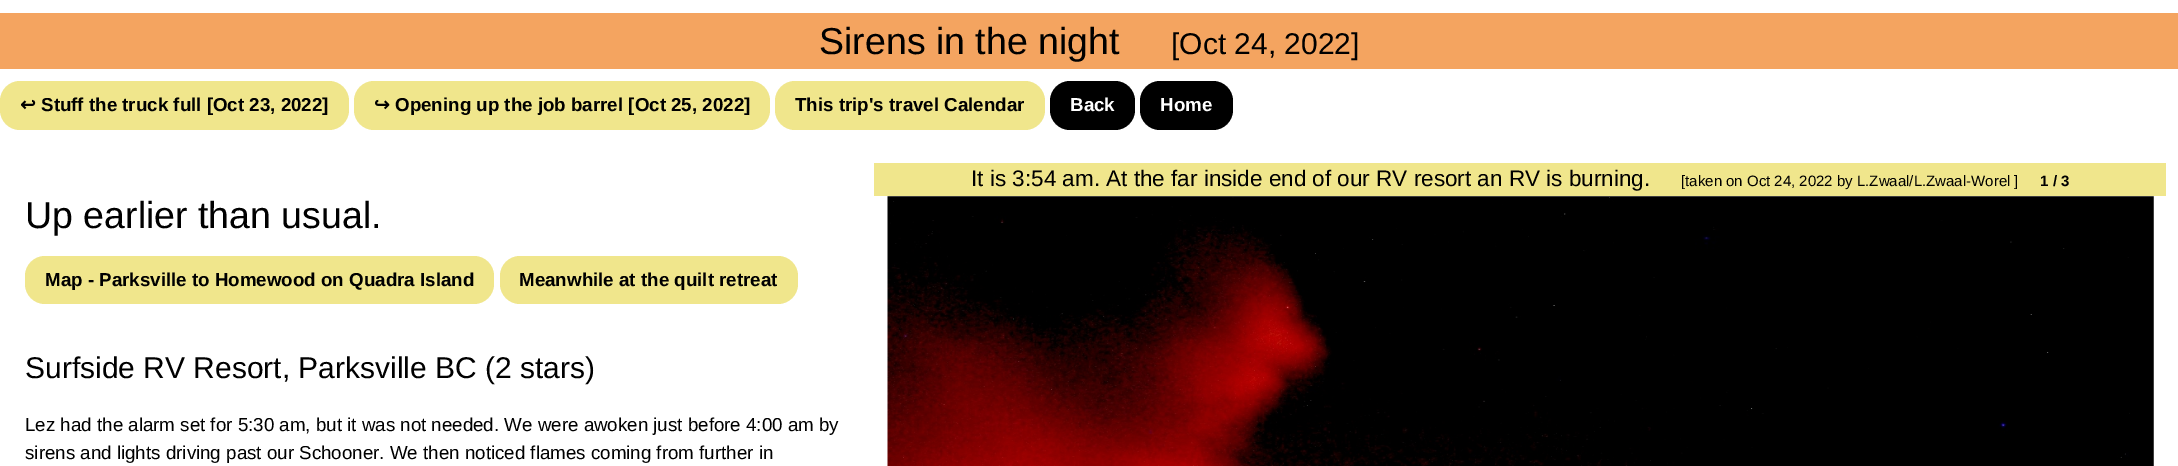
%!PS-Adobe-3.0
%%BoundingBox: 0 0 2178 466
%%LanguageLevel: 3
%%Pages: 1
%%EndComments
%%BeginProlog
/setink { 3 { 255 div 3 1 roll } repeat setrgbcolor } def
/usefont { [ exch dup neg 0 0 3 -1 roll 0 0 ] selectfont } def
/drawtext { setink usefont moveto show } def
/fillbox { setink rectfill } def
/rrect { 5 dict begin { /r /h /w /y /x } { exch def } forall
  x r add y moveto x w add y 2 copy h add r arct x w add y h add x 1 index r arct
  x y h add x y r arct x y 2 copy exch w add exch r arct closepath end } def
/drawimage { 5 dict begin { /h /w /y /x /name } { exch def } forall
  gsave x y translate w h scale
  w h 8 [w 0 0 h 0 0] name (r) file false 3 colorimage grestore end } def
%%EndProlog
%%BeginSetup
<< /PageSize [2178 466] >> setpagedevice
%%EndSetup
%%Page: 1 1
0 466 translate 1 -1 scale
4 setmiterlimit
0 0 2178 466 255 255 255 fillbox
0 13 2178 56 244 164 96 fillbox
(Sirens in the night) 819 54 /LiberationSans-Regular 37.5 0 0 0 drawtext
([Oct 24, 2022]) 1171 54 /LiberationSans-Regular 30 0 0 0 drawtext
240 230 140 setink
0 81 349 49 20 rrect fill
(↩) 20 111 /DejaVuSans-Bold 18.75 0 0 0 drawtext
(Stuff the truck full [Oct 23, 2022]) 41 111 /LiberationSans-Bold 18.75 0 0 0 drawtext
240 230 140 setink
354 81 416 49 20 rrect fill
(↪) 374 111 /DejaVuSans-Bold 18.75 0 0 0 drawtext
(Opening up the job barrel [Oct 25, 2022]) 395 111 /LiberationSans-Bold 18.75 0 0 0 drawtext
240 230 140 setink
775 81 270 49 20 rrect fill
(This trip's travel Calendar) 795 111 /LiberationSans-Bold 18.75 0 0 0 drawtext
1050 81 85 49 20 rrect fill
(Back) 1070 111 /LiberationSans-Bold 18.75 255 255 255 drawtext
0 0 0 setink
1140 81 93 49 20 rrect fill
(Home) 1160 111 /LiberationSans-Bold 18.75 255 255 255 drawtext
874 163 1292 33 240 230 140 fillbox
(It is 3:54 am. At the far inside end of our RV resort an RV is burning.) 971 186 /LiberationSans-Regular 22.5 0 0 0 drawtext
([taken on Oct 24, 2022 by L.Zwaal/L.Zwaal-Worel ]) 1681 186 /LiberationSans-Regular 15 0 0 0 drawtext
(1 / 3) 2040 186 /LiberationSans-Bold 15 0 0 0 drawtext
(assets/img1.rgb) 887 196 1267 270 drawimage
(Up earlier than usual.) 25 228 /LiberationSans-Regular 37.5 0 0 0 drawtext
240 230 140 setink
25 256 469 48 20 rrect fill
(Map - Parksville to Homewood on Quadra Island) 45 286 /LiberationSans-Bold 18.75 0 0 0 drawtext
240 230 140 setink
500 256 298 48 20 rrect fill
(Meanwhile at the quilt retreat) 519 286 /LiberationSans-Bold 18.75 0 0 0 drawtext
(Surfside RV Resort, Parksville BC \(2 stars\)) 25 378 /LiberationSans-Regular 30 0 0 0 drawtext
(Lez had the alarm set for 5:30 am, but it was not needed. We were awoken just before 4:00 am by) 25 431 /LiberationSans-Regular 18.75 0 0 0 drawtext
(sirens and lights driving past our Schooner. We then noticed flames coming from further in) 25 459 /LiberationSans-Regular 18.75 0 0 0 drawtext
showpage
%%EOF
